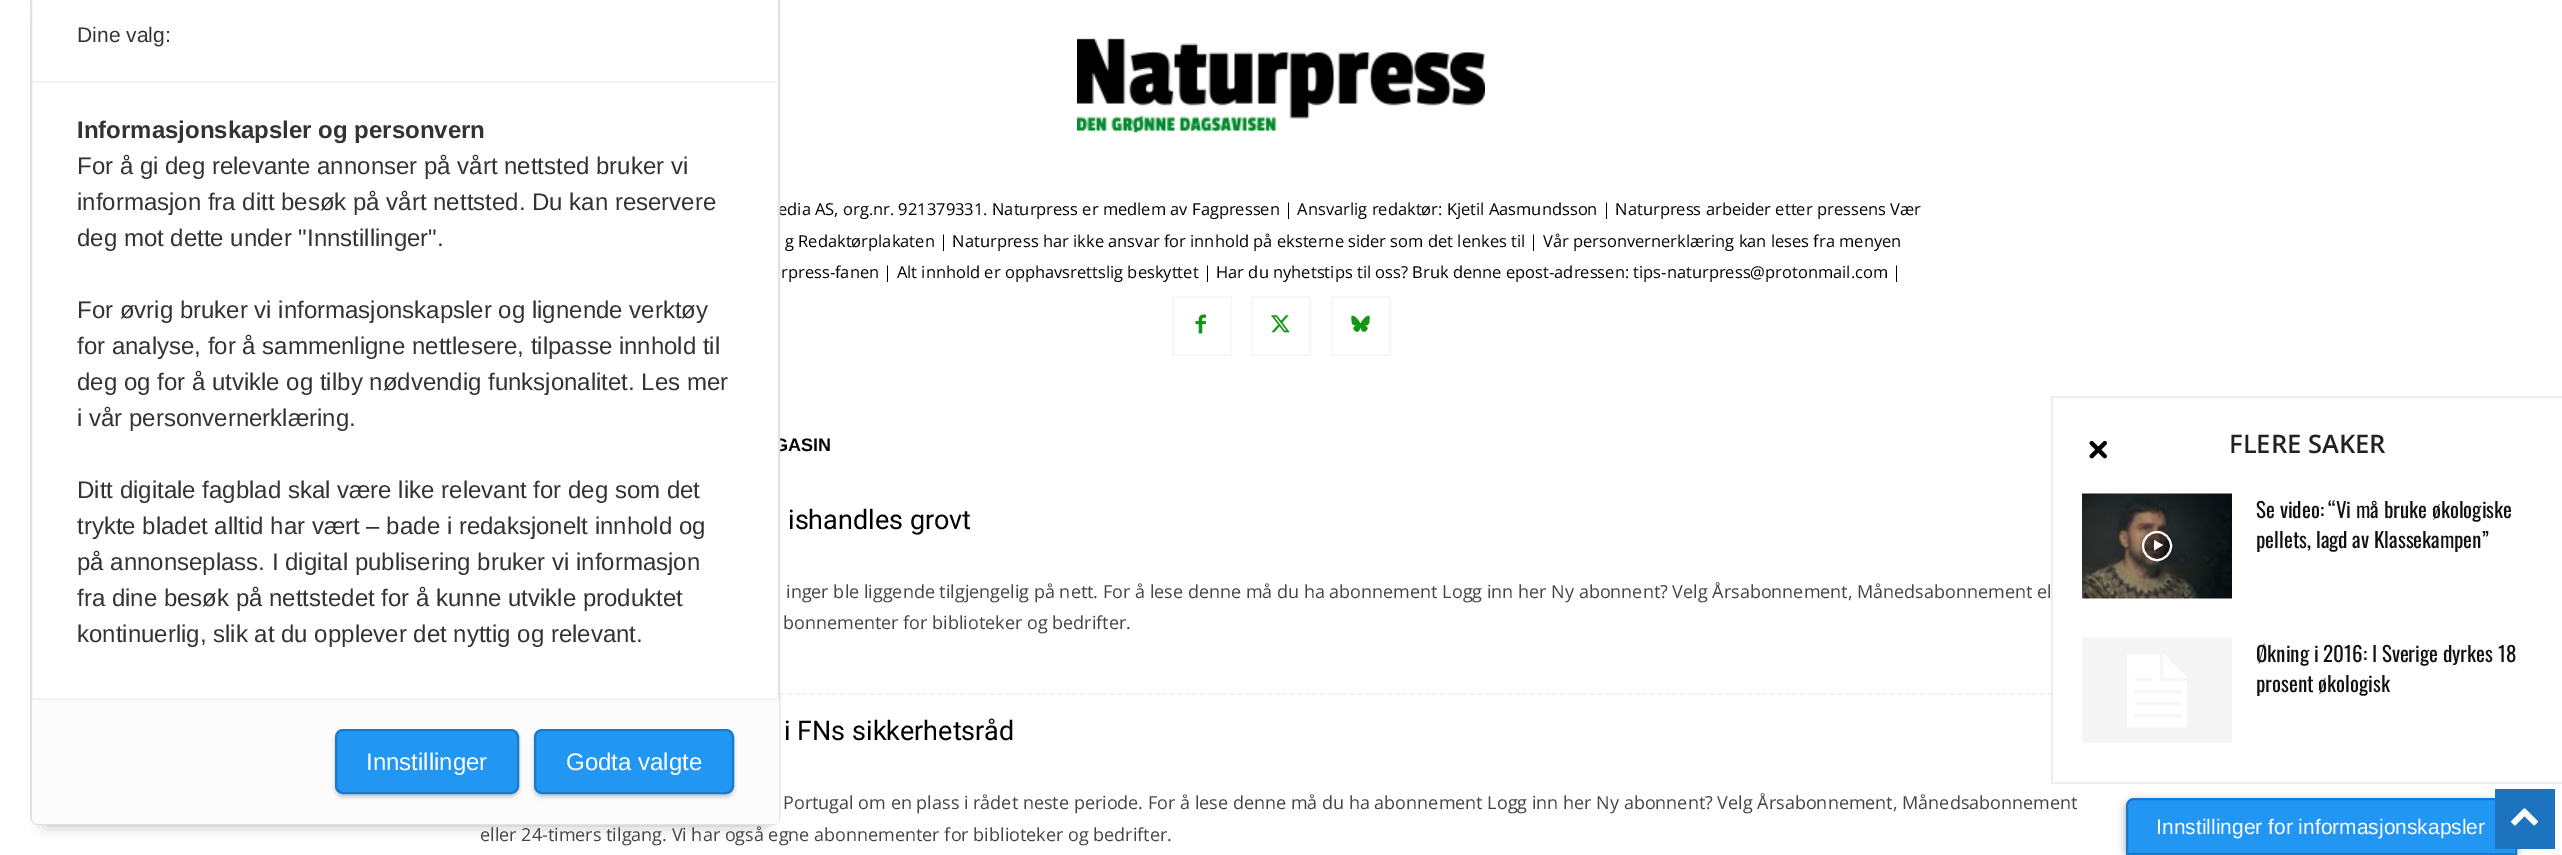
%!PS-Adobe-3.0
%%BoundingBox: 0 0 2562 855
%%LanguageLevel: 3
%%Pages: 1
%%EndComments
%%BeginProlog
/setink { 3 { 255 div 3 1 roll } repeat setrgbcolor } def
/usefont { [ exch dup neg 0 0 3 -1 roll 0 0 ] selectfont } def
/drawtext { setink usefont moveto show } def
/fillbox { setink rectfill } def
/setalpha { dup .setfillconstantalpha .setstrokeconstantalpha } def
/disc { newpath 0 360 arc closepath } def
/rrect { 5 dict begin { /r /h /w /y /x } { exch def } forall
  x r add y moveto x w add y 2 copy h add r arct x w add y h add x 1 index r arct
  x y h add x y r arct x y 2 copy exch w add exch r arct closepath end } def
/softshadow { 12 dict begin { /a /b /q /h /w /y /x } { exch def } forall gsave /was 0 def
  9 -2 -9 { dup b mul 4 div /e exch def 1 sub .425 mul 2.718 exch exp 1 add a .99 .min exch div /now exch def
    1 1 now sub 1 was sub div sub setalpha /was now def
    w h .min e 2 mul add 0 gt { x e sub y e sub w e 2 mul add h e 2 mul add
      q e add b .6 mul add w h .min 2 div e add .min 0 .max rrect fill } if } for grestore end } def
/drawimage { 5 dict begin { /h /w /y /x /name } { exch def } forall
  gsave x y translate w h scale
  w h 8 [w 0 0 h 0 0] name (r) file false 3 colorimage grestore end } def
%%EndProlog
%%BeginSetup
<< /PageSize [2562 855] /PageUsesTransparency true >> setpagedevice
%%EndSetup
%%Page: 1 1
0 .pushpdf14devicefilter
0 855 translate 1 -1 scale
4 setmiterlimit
0 0 2562 855 255 255 255 fillbox
241 241 241 setink
1.5 setlinewidth
[4.5 3] 0 setdash
480 694 moveto 2082 694 lineto stroke
0 0 0 setink
45 18 720 807 0 7.5 0.3 softshadow
(edia AS, org.nr. 921379331. Naturpress er medlem av Fagpressen | Ansvarlig redaktør: Kjetil Aasmundsson | Naturpress arbeider etter pressens Vær) 778 215 /OpenSans-Regular 16.5 0 0 0 drawtext
(GASIN) 774 451 /LiberationSans-Bold 18 0 0 0 drawtext
255 255 255 setink
31 -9 748 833 7 rrect gsave fill grestore
226 226 226 setink
2 setlinewidth
[] 0 setdash
stroke
32 81 747 2 242 242 242 fillbox
(Dine valg:) 77 42 /LiberationSans-Regular 21 51 51 51 drawtext
(Informasjonskapsler og personvern) 77 138 /LiberationSans-Bold 24 51 51 51 drawtext
(For å gi deg relevante annonser på vårt nettsted bruker vi) 77 174 /LiberationSans-Regular 24 51 51 51 drawtext
(informasjon fra ditt besøk på vårt nettsted. Du kan reservere) 77 210 /LiberationSans-Regular 24 51 51 51 drawtext
(deg mot dette under "Innstillinger".) 77 246 /LiberationSans-Regular 24 51 51 51 drawtext
(For øvrig bruker vi informasjonskapsler og lignende verktøy) 77 318 /LiberationSans-Regular 24 51 51 51 drawtext
(for analyse, for å sammenligne nettlesere, tilpasse innhold til) 77 354 /LiberationSans-Regular 24 51 51 51 drawtext
(deg og for å utvikle og tilby nødvendig funksjonalitet. Les mer) 77 390 /LiberationSans-Regular 24 51 51 51 drawtext
(i vår personvernerklæring.) 77 426 /LiberationSans-Regular 24 51 51 51 drawtext
(Ditt digitale fagblad skal være like relevant for deg som det) 77 498 /LiberationSans-Regular 24 51 51 51 drawtext
(trykte bladet alltid har vært – bade i redaksjonelt innhold og) 77 534 /LiberationSans-Regular 24 51 51 51 drawtext
(på annonseplass. I digital publisering bruker vi informasjon) 77 570 /LiberationSans-Regular 24 51 51 51 drawtext
(fra dine besøk på nettstedet for å kunne utvikle produktet) 77 606 /LiberationSans-Regular 24 51 51 51 drawtext
(kontinuerlig, slik at du opplever det nyttig og relevant.) 77 642 /LiberationSans-Regular 24 51 51 51 drawtext
252 252 252 setink
32 698 moveto 779 698 lineto 779 818 lineto 779 821.5 776.5 824 773 824 curveto 38 824 lineto 34.5 824 32 821.5 32 818 curveto closepath fill
32 698 747 2 242 242 242 fillbox
0 0 0 setink
335 732 184 65 8 2 0.2 softshadow
33 150 243 setink
336 730 182 63 7 rrect gsave fill grestore
21 123 206 setink
stroke
(Innstillinger) 366 770 /LiberationSans-Regular 24 255 255 255 drawtext
0 0 0 setink
534 732 200 65 8 2 0.2 softshadow
33 150 243 setink
535 730 198 63 7 rrect gsave fill grestore
21 123 206 setink
stroke
(Godta valgte) 566 770 /LiberationSans-Regular 24 255 255 255 drawtext
(assets/img1.rgb) 1077 38 408 95 drawimage
(g Redaktørplakaten | Naturpress har ikke ansvar for innhold på eksterne sider som det lenkes til | Vår personvernerklæring kan leses fra menyen) 785 247 /OpenSans-Regular 16.5 0 0 0 drawtext
(rpress-fanen | Alt innhold er opphavsrettslig beskyttet | Har du nyhetstips til oss? Bruk denne epost-adressen: tips-naturpress@protonmail.com |) 781 278 /OpenSans-Regular 16.5 0 0 0 drawtext
(assets/img2.rgb) 1195 314 11 20 drawimage
247 247 247 setink
1173 297 58 58 rectstroke
(assets/img3.rgb) 1271 315 19 18 drawimage
1252 297 58 58 rectstroke
(assets/img4.rgb) 1351 315 19 17 drawimage
1332 297 58 58 rectstroke
(ishandles grovt) 788 529 /Roboto-Regular 27 0 0 0 drawtext
(inger ble liggende tilgjengelig på nett. For å lese denne må du ha abonnement Logg inn her Ny abonnent? Velg Årsabonnement, Månedsabonnement el) 786 598 /OpenSans-Regular 18 68 68 68 drawtext
(bonnementer for biblioteker og bedrifter.) 783 629 /OpenSans-Regular 18 68 68 68 drawtext
(i FNs sikkerhetsråd) 784 740 /Roboto-Regular 27 0 0 0 drawtext
(Portugal om en plass i rådet neste periode. For å lese denne må du ha abonnement Logg inn her Ny abonnent? Velg Årsabonnement, Månedsabonnement) 783 809 /OpenSans-Regular 18 68 68 68 drawtext
(eller 24-timers tilgang. Vi har også egne abonnementer for biblioteker og bedrifter.) 480 841 /OpenSans-Regular 18 68 68 68 drawtext
2055 693 27 2 255 255 255 fillbox
2051 396 511 2 237 237 237 fillbox
2051 782 511 2 237 237 237 fillbox
2051 396 2 387 237 237 237 fillbox
(assets/img5.rgb) 2089 440 18 19 drawimage
(FLERE SAKER) 2229 453 /OpenSans-SemiBold 25.5 34 34 34 drawtext
(assets/img6.rgb) 2082 493 150 106 drawimage
gsave
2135 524 moveto 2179 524 lineto 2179 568 lineto 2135 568 lineto closepath 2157 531 moveto 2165.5 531 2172 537.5 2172 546 curveto 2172 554.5 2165.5 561 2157 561 curveto 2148.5 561 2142 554.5 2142 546 curveto 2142 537.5 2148.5 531 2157 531 curveto closepath eoclip newpath
0 0 0 setink
2142 531 30 30 15 2 0.4 softshadow
grestore
0.48 setalpha
0 0 0 setink
2157 546 14 disc fill
1 setalpha
255 255 255 setink
2157 546 14 disc stroke
2154 540 moveto 2154 550.5 lineto 2163 545 lineto closepath fill
(Se video: “Vi må bruke økologiske) 2256 518 /Oswald-Regular 21 17 17 17 drawtext
(pellets, lagd av Klassekampen”) 2256 548 /Oswald-Regular 21 17 17 17 drawtext
(assets/img7.rgb) 2082 637 150 106 drawimage
(Økning i 2016: I Sverige dyrkes 18) 2256 662 /Oswald-Regular 21 17 17 17 drawtext
(prosent økologisk) 2256 692 /Oswald-Regular 21 17 17 17 drawtext
0 0 0 setink
2126 801 391 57 8 4 0.4 softshadow
33 150 243 setink
2134 799 moveto 2509 799 lineto 2513 799 2516 802 2516 806 curveto 2516 854 lineto 2127 854 lineto 2127 806 lineto 2127 802 2130 799 2134 799 curveto closepath gsave fill grestore
21 123 206 setink
stroke
(Innstillinger for informasjonskapsler) 2156 834 /LiberationSans-Regular 21 255 255 255 drawtext
2495 789 60 60 30 115 190 fillbox
(assets/img8.rgb) 2511 808 27 18 drawimage
.poppdf14devicefilter showpage
%%EOF
